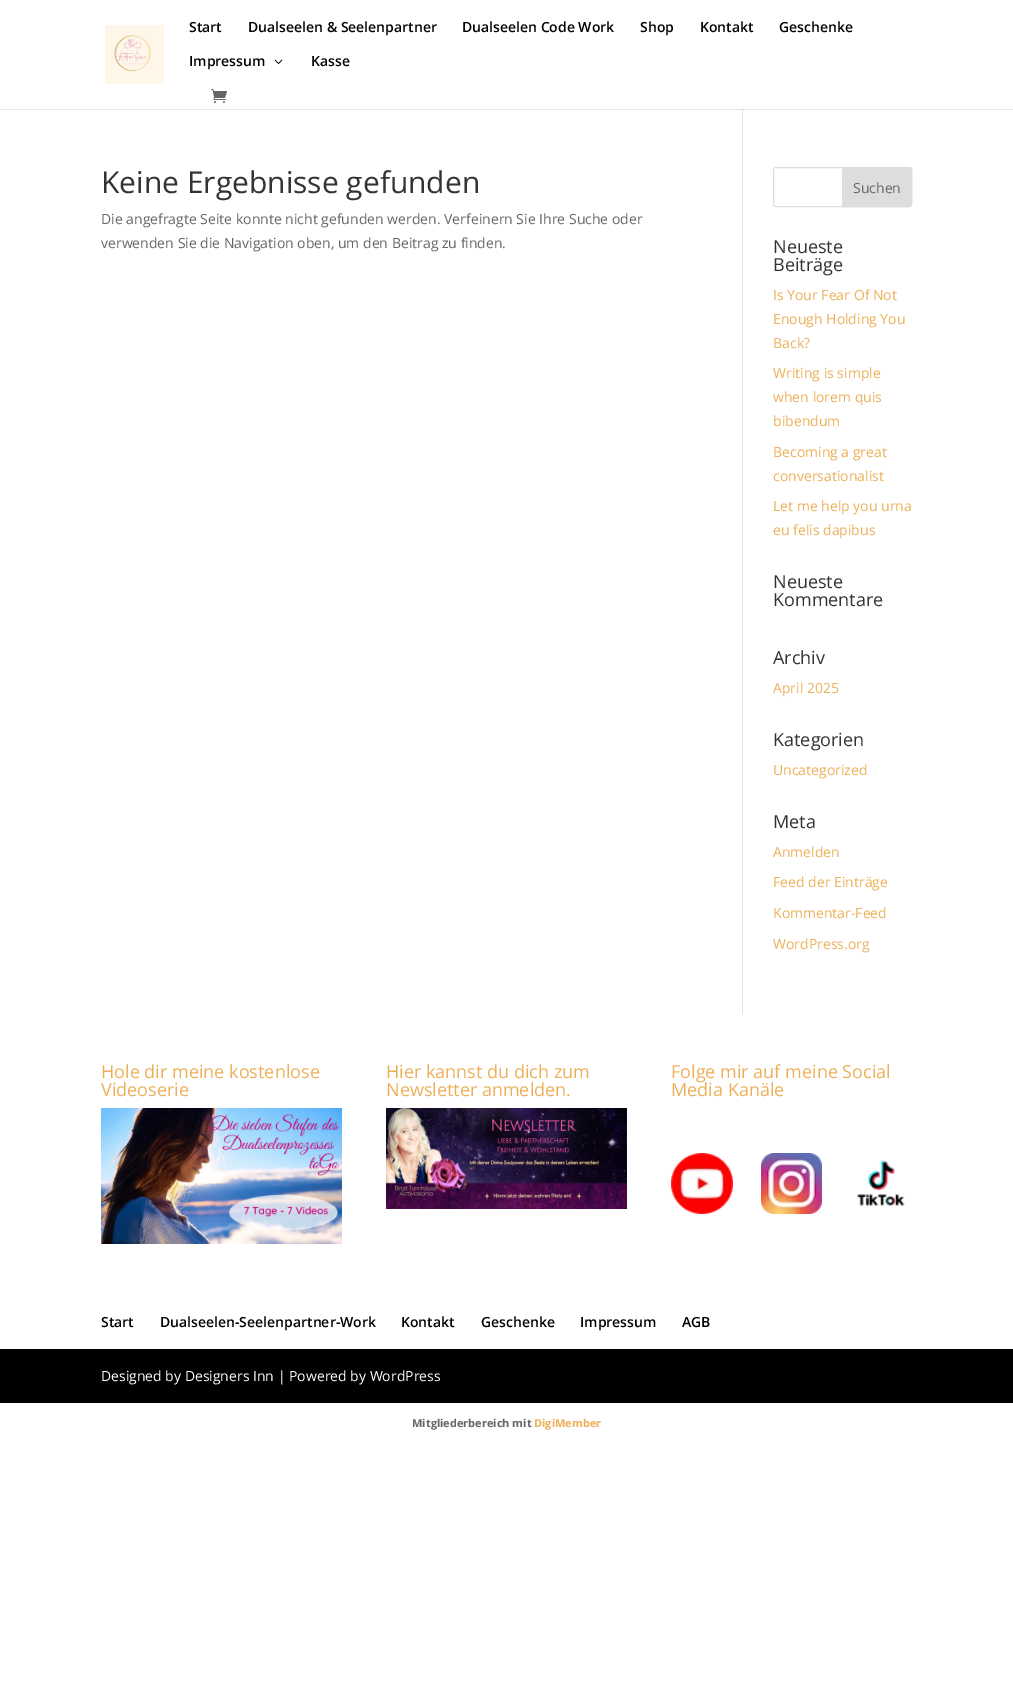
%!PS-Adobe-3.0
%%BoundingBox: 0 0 1013 1707
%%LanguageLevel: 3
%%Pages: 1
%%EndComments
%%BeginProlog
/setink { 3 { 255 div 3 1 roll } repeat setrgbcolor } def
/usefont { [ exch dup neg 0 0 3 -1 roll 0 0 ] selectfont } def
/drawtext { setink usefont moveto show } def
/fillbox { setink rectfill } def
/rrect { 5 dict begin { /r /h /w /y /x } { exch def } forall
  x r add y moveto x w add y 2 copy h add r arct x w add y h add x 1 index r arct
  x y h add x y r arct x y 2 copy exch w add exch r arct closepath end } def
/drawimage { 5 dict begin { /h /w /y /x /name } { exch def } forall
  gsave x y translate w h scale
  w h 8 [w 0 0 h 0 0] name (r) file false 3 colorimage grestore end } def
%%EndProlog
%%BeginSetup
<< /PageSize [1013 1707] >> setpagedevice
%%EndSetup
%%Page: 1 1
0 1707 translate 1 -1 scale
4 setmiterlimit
0 0 1013 1707 255 255 255 fillbox
0 109 1013 1 230 230 230 fillbox
(assets/img1.rgb) 105 25 59 59 drawimage
(Start) 189 32 /OpenSans-SemiBold 14 0 0 0 drawtext
(Dualseelen & Seelenpartner) 248 32 /OpenSans-SemiBold 14 0 0 0 drawtext
(Dualseelen Code Work) 462 32 /OpenSans-SemiBold 14 0 0 0 drawtext
(Shop) 640 32 /OpenSans-SemiBold 14 0 0 0 drawtext
(Kontakt) 700 32 /OpenSans-SemiBold 14 0 0 0 drawtext
(Geschenke) 779 32 /OpenSans-SemiBold 14 0 0 0 drawtext
(Impressum) 189 66 /OpenSans-SemiBold 14 0 0 0 drawtext
(assets/img2.rgb) 274 59 9 5 drawimage
(Kasse) 311 66 /OpenSans-SemiBold 14 0 0 0 drawtext
(assets/img3.rgb) 211 89 16 14 drawimage
742 109 1 905 226 226 226 fillbox
742 109 1 1 203 203 203 fillbox
(Keine Ergebnisse gefunden) 101 193 /OpenSans-Regular 30 51 51 51 drawtext
(Die angefragte Seite konnte nicht gefunden werden. Verfeinern Sie Ihre Suche oder) 101 224 /OpenSans-Regular 14 102 102 102 drawtext
(verwenden Sie die Navigation oben, um den Beitrag zu finden.) 101 248 /OpenSans-Regular 14 102 102 102 drawtext
221 221 221 setink
773.5 167.5 138 39 2.5 rrect stroke
842.5 167.5 moveto 909 167.5 lineto 910.5 167.5 911.5 168.5 911.5 170 curveto 911.5 204 lineto 911.5 205.5 910.5 206.5 909 206.5 curveto 842.5 206.5 lineto closepath gsave fill grestore
stroke
(Suchen) 853 193 /OpenSans-Regular 14 102 102 102 drawtext
(Neueste) 773 253 /OpenSans-Regular 18 51 51 51 drawtext
(Beiträge) 773 271 /OpenSans-Regular 18 51 51 51 drawtext
(Is Your Fear Of Not) 773 300 /OpenSans-Regular 14 237 176 89 drawtext
(Enough Holding You) 773 324 /OpenSans-Regular 14 237 176 89 drawtext
(Back?) 773 348 /OpenSans-Regular 14 237 176 89 drawtext
(Writing is simple) 773 378 /OpenSans-Regular 14 237 176 89 drawtext
(when lorem quis) 773 402 /OpenSans-Regular 14 237 176 89 drawtext
(bibendum) 773 426 /OpenSans-Regular 14 237 176 89 drawtext
(Becoming a great) 773 457 /OpenSans-Regular 14 237 176 89 drawtext
(conversationalist) 773 481 /OpenSans-Regular 14 237 176 89 drawtext
(Let me help you urna) 773 511 /OpenSans-Regular 14 237 176 89 drawtext
(eu felis dapibus) 773 535 /OpenSans-Regular 14 237 176 89 drawtext
(Neueste) 773 588 /OpenSans-Regular 18 51 51 51 drawtext
(Kommentare) 773 606 /OpenSans-Regular 18 51 51 51 drawtext
(Archiv) 773 664 /OpenSans-Regular 18 51 51 51 drawtext
(April 2025) 773 693 /OpenSans-Regular 14 237 176 89 drawtext
(Kategorien) 773 746 /OpenSans-Regular 18 51 51 51 drawtext
(Uncategorized) 773 775 /OpenSans-Regular 14 237 176 89 drawtext
(Meta) 773 828 /OpenSans-Regular 18 51 51 51 drawtext
(Anmelden) 773 857 /OpenSans-Regular 14 237 176 89 drawtext
(Feed der Einträge) 773 887 /OpenSans-Regular 14 237 176 89 drawtext
(Kommentar-Feed) 773 918 /OpenSans-Regular 14 237 176 89 drawtext
(WordPress.org) 773 949 /OpenSans-Regular 14 237 176 89 drawtext
(Hole dir meine kostenlose) 101 1078 /OpenSans-Regular 18 237 176 89 drawtext
(Videoserie) 101 1096 /OpenSans-Regular 18 237 176 89 drawtext
(assets/img4.rgb) 101 1108 241 136 drawimage
(Hier kannst du dich zum) 386 1078 /OpenSans-Regular 18 237 176 89 drawtext
(Newsletter anmelden.) 386 1096 /OpenSans-Regular 18 237 176 89 drawtext
(assets/img5.rgb) 386 1108 241 101 drawimage
(Folge mir auf meine Social) 671 1078 /OpenSans-Regular 18 237 176 89 drawtext
(Media Kanäle) 671 1096 /OpenSans-Regular 18 237 176 89 drawtext
(assets/img6.rgb) 671 1153 62 61 drawimage
(assets/img7.rgb) 761 1153 61 61 drawimage
(assets/img8.rgb) 857 1160 48 46 drawimage
(Start) 101 1327 /OpenSans-SemiBold 14 0 0 0 drawtext
(Dualseelen-Seelenpartner-Work) 160 1327 /OpenSans-SemiBold 14 0 0 0 drawtext
(Kontakt) 401 1327 /OpenSans-SemiBold 14 0 0 0 drawtext
(Geschenke) 481 1327 /OpenSans-SemiBold 14 0 0 0 drawtext
(Impressum) 580 1327 /OpenSans-SemiBold 14 0 0 0 drawtext
(AGB) 682 1327 /OpenSans-SemiBold 14 0 0 0 drawtext
0 1349 1013 54 0 0 0 fillbox
(Designed by Designers Inn | Powered by WordPress) 101 1381 /OpenSans-Regular 14 255 255 255 drawtext
(Mitgliederbereich mit) 412 1427 /OpenSans-Bold 11 102 102 102 drawtext
(DigiMember) 534 1427 /OpenSans-Bold 11 237 176 89 drawtext
showpage
%%EOF
